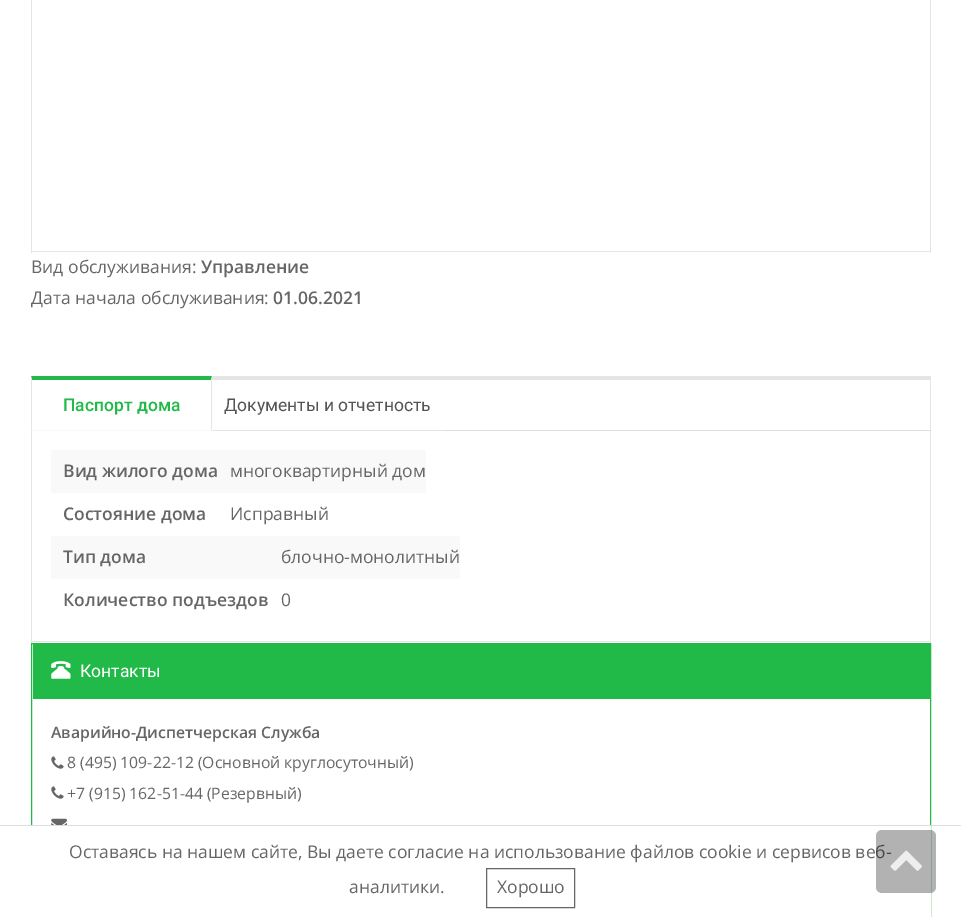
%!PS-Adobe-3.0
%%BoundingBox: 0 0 961 917
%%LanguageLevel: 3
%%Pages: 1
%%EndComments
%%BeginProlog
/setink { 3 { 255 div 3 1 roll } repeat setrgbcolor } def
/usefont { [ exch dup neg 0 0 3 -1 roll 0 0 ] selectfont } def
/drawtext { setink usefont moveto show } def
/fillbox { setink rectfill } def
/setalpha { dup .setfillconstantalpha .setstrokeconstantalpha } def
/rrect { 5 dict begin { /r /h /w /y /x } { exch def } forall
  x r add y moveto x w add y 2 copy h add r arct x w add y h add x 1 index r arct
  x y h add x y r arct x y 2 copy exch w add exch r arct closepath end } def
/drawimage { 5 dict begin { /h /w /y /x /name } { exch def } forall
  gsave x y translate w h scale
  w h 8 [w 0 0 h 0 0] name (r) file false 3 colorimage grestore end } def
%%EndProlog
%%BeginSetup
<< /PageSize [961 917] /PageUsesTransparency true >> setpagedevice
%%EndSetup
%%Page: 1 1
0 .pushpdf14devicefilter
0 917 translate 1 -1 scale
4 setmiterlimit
0 0 961 917 255 255 255 fillbox
930 0 1 253 229 229 229 fillbox
31 251 900 1 229 229 229 fillbox
31 0 1 253 229 229 229 fillbox
(Вид обслуживания:) 31 273 /OpenSans-Regular 17.5 102 102 102 drawtext
(Управление) 201 273 /OpenSans-SemiBold 17.5 102 102 102 drawtext
(Дата начала обслуживания:) 31 304 /OpenSans-Regular 17.5 102 102 102 drawtext
(01.06.2021) 273 304 /OpenSans-SemiBold 17.5 102 102 102 drawtext
31 376 900 4 229 229 229 fillbox
930 376 1 267 229 229 229 fillbox
444 430 487 1 221 221 221 fillbox
33 186 73 setink
31 376 moveto 212 376 lineto 211 380 lineto 32 380 lineto closepath fill
211 430 233 1 229 229 229 fillbox
212 376 moveto 212 431 lineto 211 430 lineto 211 380 lineto closepath fill
31 430 182 1 249 249 249 fillbox
229 229 229 setink
31 431 moveto 31 376 lineto 32 380 lineto 32 430 lineto closepath fill
(Паспорт дома) 63 411 /Roboto-Medium 17.5 33 186 73 drawtext
(Документы и отчетность) 224 411 /Roboto-Regular 17.5 85 85 85 drawtext
31 641 900 1 229 229 229 fillbox
31 431 1 212 229 229 229 fillbox
51 450 375 43 249 249 249 fillbox
(Вид жилого дома) 63 477 /OpenSans-SemiBold 17.5 102 102 102 drawtext
(многоквартирный дом) 230 477 /OpenSans-Regular 17.5 102 102 102 drawtext
(Состояние дома) 63 520 /OpenSans-SemiBold 17.5 102 102 102 drawtext
(Исправный) 230 520 /OpenSans-Regular 17.5 102 102 102 drawtext
51 536 409 43 249 249 249 fillbox
(Тип дома) 63 563 /OpenSans-SemiBold 17.5 102 102 102 drawtext
(блочно-монолитный) 281 563 /OpenSans-Regular 17.5 102 102 102 drawtext
(Количество подъездов) 63 606 /OpenSans-SemiBold 17.5 102 102 102 drawtext
(0) 281 606 /OpenSans-Regular 17.5 102 102 102 drawtext
33 186 73 setink
31.5 643.5 899 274 rectstroke
33 644 897 55 33 186 73 fillbox
(assets/img1.rgb) 51 661 20 18 drawimage
(Контакты) 80 677 /Roboto-Regular 17.5 255 255 255 drawtext
(Аварийно-Диспетчерская Служба) 51 738 /OpenSans-SemiBold 15.75 102 102 102 drawtext
(assets/img2.rgb) 51 756 13 13 drawimage
(8 \(495\) 109-22-12 \(Основной круглосуточный\)) 67 768 /OpenSans-Regular 15.75 102 102 102 drawtext
(assets/img2.rgb) 51 786 13 13 drawimage
(+7 \(915\) 162-51-44 \(Резервный\)) 67 799 /OpenSans-Regular 15.75 102 102 102 drawtext
(assets/img3.rgb) 51 818 16 7 drawimage
31 826 900 91 255 255 255 fillbox
0 825 961 1 221 221 221 fillbox
(Оставаясь на нашем сайте, Вы даете согласие на использование файлов cookie и сервисов веб-) 69 858 /OpenSans-Regular 17.5 102 102 102 drawtext
(аналитики.) 349 893 /OpenSans-Regular 17.5 102 102 102 drawtext
486.5 868.5 88 39 rectstroke
(Хорошо) 497 893 /OpenSans-Regular 17.5 102 102 102 drawtext
0.3 setalpha
0 0 0 setink
876 830 60 63 6 rrect fill
1 setalpha
(assets/img4.rgb) 890 850 32 21 drawimage
.poppdf14devicefilter showpage
%%EOF
